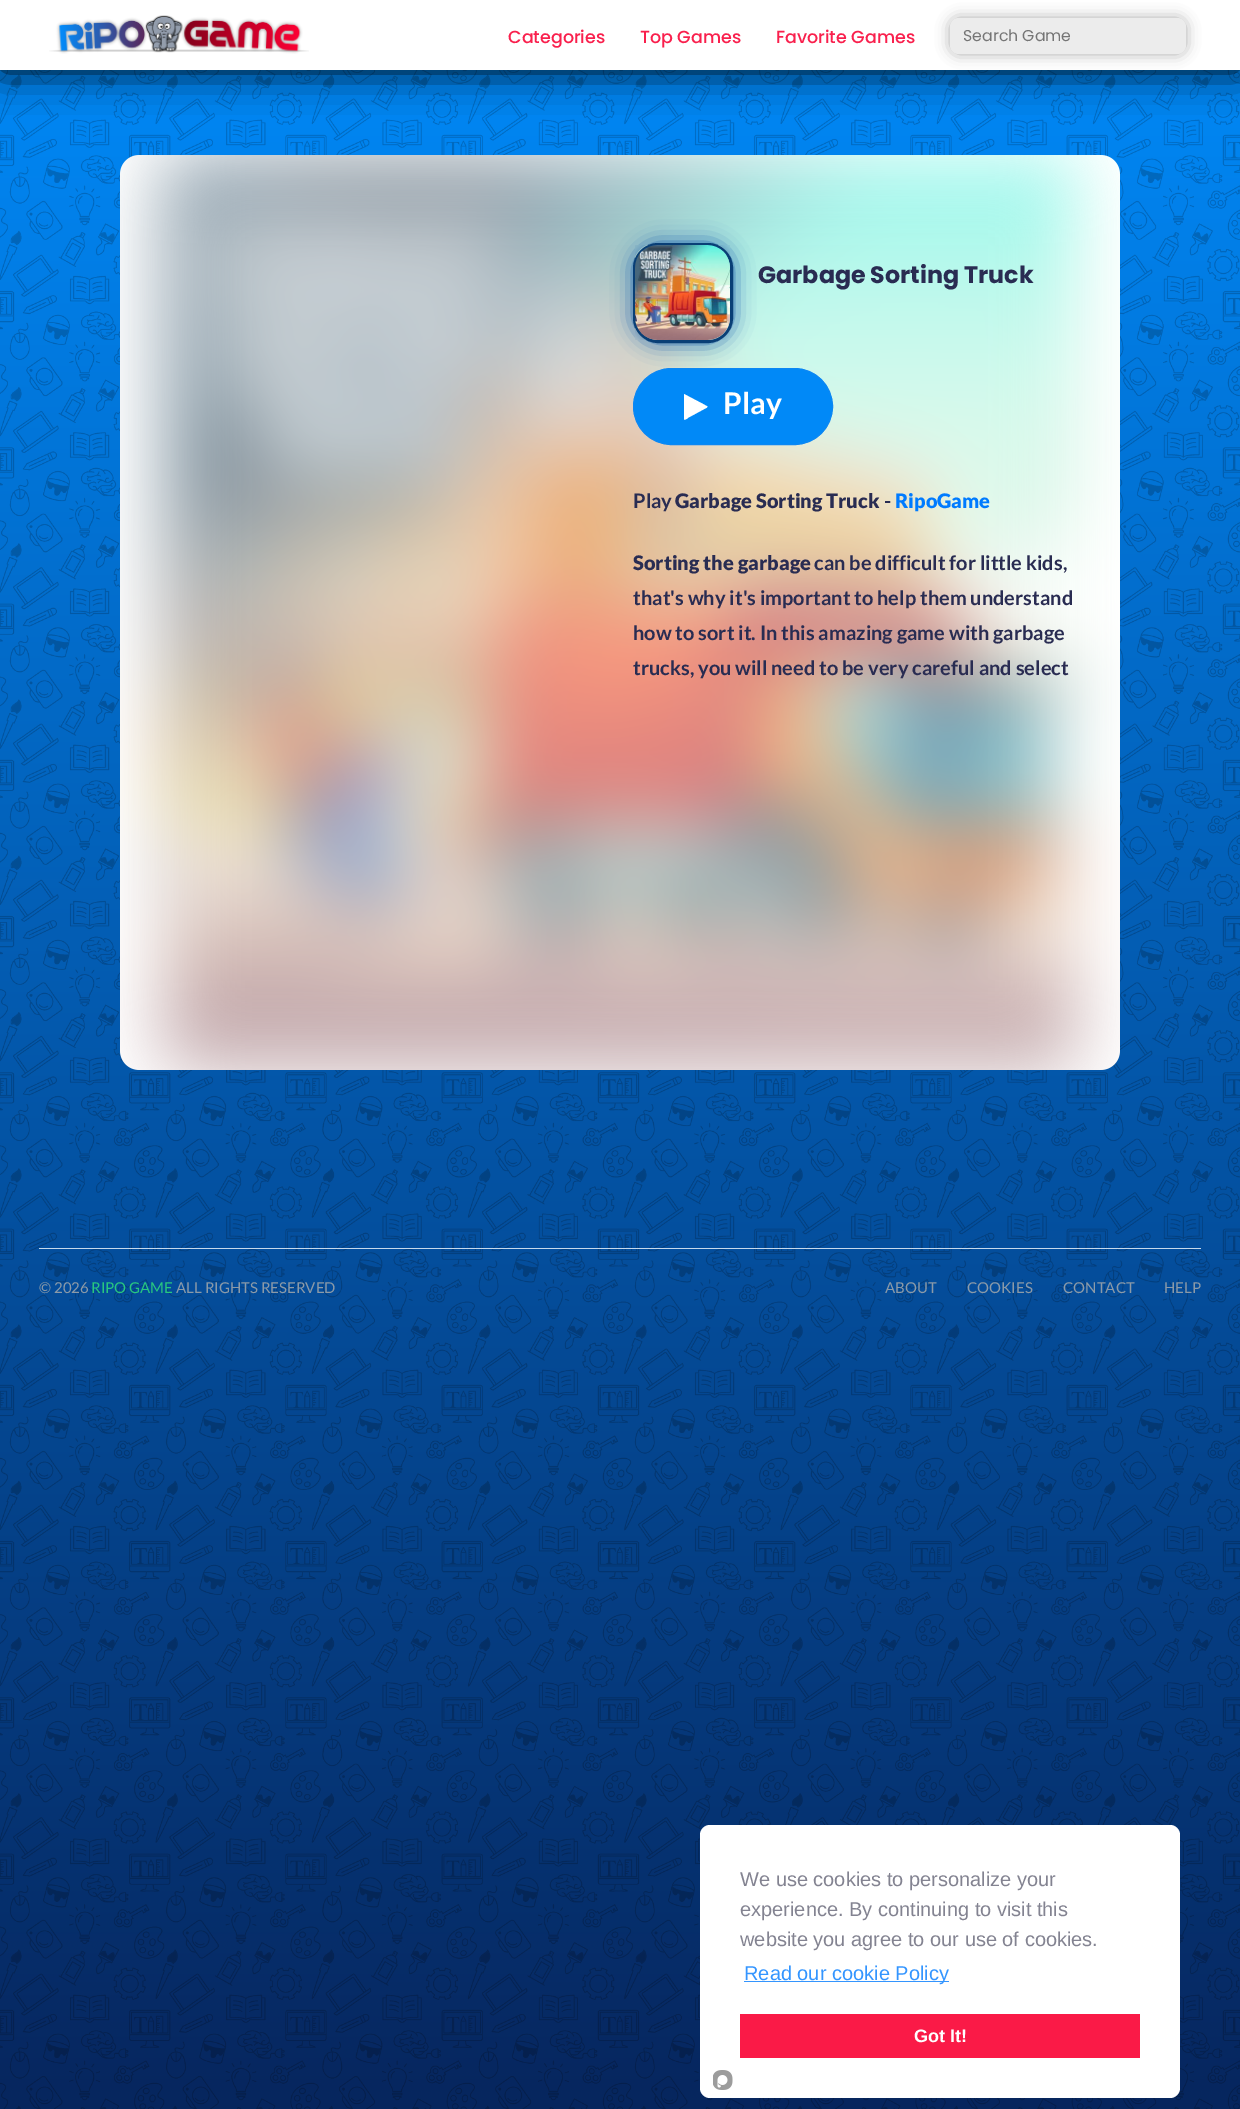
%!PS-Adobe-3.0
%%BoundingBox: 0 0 1240 2109
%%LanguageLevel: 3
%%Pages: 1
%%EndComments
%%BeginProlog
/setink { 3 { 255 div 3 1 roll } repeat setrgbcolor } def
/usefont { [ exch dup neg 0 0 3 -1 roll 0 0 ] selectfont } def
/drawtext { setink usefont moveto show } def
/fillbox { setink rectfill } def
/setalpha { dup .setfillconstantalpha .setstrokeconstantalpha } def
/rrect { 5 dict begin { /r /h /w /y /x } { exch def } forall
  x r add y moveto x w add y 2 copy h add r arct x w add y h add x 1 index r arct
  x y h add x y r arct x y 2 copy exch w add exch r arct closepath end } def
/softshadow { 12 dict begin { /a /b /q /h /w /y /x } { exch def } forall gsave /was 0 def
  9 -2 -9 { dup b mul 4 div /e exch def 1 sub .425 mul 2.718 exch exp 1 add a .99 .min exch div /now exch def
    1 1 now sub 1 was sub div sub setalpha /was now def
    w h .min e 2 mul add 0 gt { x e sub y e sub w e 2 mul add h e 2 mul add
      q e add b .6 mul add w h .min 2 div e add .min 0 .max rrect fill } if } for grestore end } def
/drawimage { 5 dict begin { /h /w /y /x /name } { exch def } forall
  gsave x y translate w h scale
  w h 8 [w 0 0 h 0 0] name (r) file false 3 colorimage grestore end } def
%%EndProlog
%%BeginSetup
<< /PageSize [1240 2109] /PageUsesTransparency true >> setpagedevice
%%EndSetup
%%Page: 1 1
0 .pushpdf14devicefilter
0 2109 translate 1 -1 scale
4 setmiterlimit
0 0 1240 2109 255 255 255 fillbox
gsave 0 70 moveto 1240 70 lineto 1240 2109 lineto 0 2109 lineto closepath clip newpath
<< /ShadingType 2 /ColorSpace /DeviceRGB /Coords [620 0 620 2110] /Extend [true true] /Function << /FunctionType 2 /Domain [0 1] /C0 [0 0.541 0.976] /C1 [0.024 0.145 0.365] /N 1 >> >> shfill grestore
(assets/img2.rgb) 0 70 1240 2039 drawimage
0 0 0 setink
0 0 1240 70 0 20 1 softshadow
0 0 1240 70 255 255 255 fillbox
(assets/img1.rgb) 49 15 260 39 drawimage
(Categories) 508 43 /Poppins-Medium 17.5 249 32 77 drawtext
(Top Games) 640 43 /Poppins-Medium 17.5 249 32 77 drawtext
(Favorite Games) 776 43 /Poppins-Medium 17.5 249 32 77 drawtext
170 170 170 setink
950 18 236 36 9 7 1 softshadow
236 236 236 setink
950 18 236 36 9 rrect fill
(Search Game) 963 41 /Poppins-Regular 15.75 117 117 117 drawtext
255 255 255 setink
120 155 1000 915 19 rrect fill
(assets/img3.rgb) 120 155 1000 915 drawimage
26 95 174 setink
633 243 100 100 25 10.5 1 softshadow
9 63 118 setink
3 setlinewidth
634.5 244.5 97 97 23.5 rrect stroke
(assets/img4.rgb) 635 245 95 95 drawimage
(Garbage Sorting Truck) 758 283 /Poppins-Bold 23.75 41 44 82 drawtext
1 137 247 setink
633.5 368.5 199 76 38 rrect gsave fill grestore
12 135 243 setink
1 setlinewidth
stroke
255 255 255 setink
707 407.5 moveto 688.5 417.5 lineto 688 418 684.5 420.5 684 419.5 curveto 684 394 lineto 703 404 lineto 707.5 406.5 lineto closepath fill
(Play) 723 414 /Lato-Bold 30 255 255 255 drawtext
(Play) 633 508 /Lato-Bold 20 41 44 82 drawtext
(Garbage Sorting Truck) 675 508 /Lato-Black 20 41 44 82 drawtext
(-) 884 508 /Lato-Bold 20 41 44 82 drawtext
(RipoGame) 895 508 /Lato-Black 20 0 123 255 drawtext
(Sorting the garbage) 633 570 /Lato-Black 20 41 44 82 drawtext
(can be difficult for little kids,) 814 570 /Lato-Bold 20 41 44 82 drawtext
(that's why it's important to help them understand) 633 605 /Lato-Bold 20 41 44 82 drawtext
(how to sort it. In this amazing game with garbage) 633 640 /Lato-Bold 20 41 44 82 drawtext
(trucks, you will need to be very careful and select) 633 675 /Lato-Bold 20 41 44 82 drawtext
39 1248 1162 1 198 217 235 fillbox
(© 2026) 39 1293 /Lato-Regular 15 139 154 168 drawtext
(RIPO GAME) 91 1293 /Lato-Regular 15 40 199 127 drawtext
(ALL RIGHTS RESERVED) 176 1293 /Lato-Regular 15 139 154 168 drawtext
(ABOUT) 885 1293 /Lato-Regular 15 139 154 168 drawtext
(COOKIES) 967 1293 /Lato-Regular 15 139 154 168 drawtext
(CONTACT) 1063 1293 /Lato-Regular 15 139 154 168 drawtext
(HELP) 1164 1293 /Lato-Regular 15 139 154 168 drawtext
255 255 255 setink
700 1825 480 273 10 rrect fill
(We use cookies to personalize your) 740 1886 /LiberationSans-Regular 20 131 131 145 drawtext
(experience. By continuing to visit this) 740 1916 /LiberationSans-Regular 20 131 131 145 drawtext
(website you agree to our use of cookies.) 740 1946 /LiberationSans-Regular 20 131 131 145 drawtext
744 1981 205 1 51 149 255 fillbox
(Read our cookie Policy) 744 1980 /LiberationSans-Regular 20 51 149 255 drawtext
740 2014 400 44 250 26 71 fillbox
(Got It!) 914 2042 /LiberationSans-Bold 18 255 255 255 drawtext
(assets/img5.rgb) 713 2070 20 20 drawimage
.poppdf14devicefilter showpage
%%EOF
